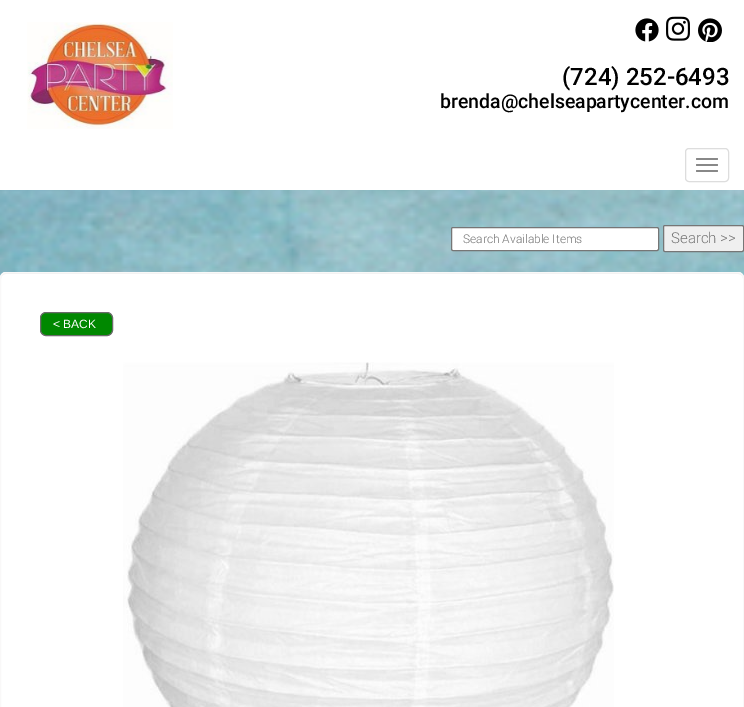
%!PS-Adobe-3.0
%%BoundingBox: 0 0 744 707
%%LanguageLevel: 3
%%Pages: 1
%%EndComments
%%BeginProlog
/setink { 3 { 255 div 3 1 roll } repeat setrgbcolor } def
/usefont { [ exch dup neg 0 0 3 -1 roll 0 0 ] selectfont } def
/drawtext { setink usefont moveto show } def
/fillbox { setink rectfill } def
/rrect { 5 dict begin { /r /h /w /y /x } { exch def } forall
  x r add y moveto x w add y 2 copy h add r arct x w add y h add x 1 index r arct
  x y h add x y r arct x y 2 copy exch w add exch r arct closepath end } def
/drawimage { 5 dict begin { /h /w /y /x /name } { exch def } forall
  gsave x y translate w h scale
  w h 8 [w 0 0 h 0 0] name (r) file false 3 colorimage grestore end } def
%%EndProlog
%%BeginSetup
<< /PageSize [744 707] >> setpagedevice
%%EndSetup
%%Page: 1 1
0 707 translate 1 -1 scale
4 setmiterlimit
0 0 744 707 255 255 255 fillbox
(assets/img1.rgb) 0 190 744 88 drawimage
(assets/img2.rgb) 27 22 146 107 drawimage
(assets/img3.rgb) 635 18 24 24 drawimage
(assets/img4.rgb) 666 16 24 25 drawimage
(assets/img5.rgb) 698 18 24 24 drawimage
(\(724\) 252-6493) 562 85 /Roboto-Medium 24 0 0 0 drawtext
(brenda@chelseapartycenter.com) 440 108 /Roboto-Medium 19.5 0 0 0 drawtext
221 221 221 setink
685.5 148.5 43 33 3.5 rrect stroke
136 136 136 setink
696 158 22 2 1 rrect fill
696 164 22 2 1 rrect fill
696 170 22 2 1 rrect fill
255 255 255 setink
451.5 227.5 207 23 1.5 rrect gsave fill grestore
118 118 118 setink
stroke
(Search Available Items) 463 243 /Roboto-Light 12 117 117 117 drawtext
239 239 239 setink
663.5 225.5 80 26 1.5 rrect gsave fill grestore
118 118 118 setink
stroke
(Search >>) 671 243 /Roboto-Light 15 117 117 117 drawtext
255 255 255 setink
0 272 744 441 6 rrect fill
242 242 242 setink
6 274 moveto 738 274 lineto 741 274 743 276 743 279 curveto 743 276 741 273 738 273 curveto 6 273 lineto 3 273 1 276 1 279 curveto 1 276 3 274 6 274 curveto closepath fill
249 248 248 setink
0.5 272.5 743 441 5.5 rrect stroke
0 136 0 setink
40.5 312.5 72 23 5.5 rrect gsave fill grestore
107 107 107 setink
stroke
(< BACK) 53 328 /LiberationSans-Regular 12 255 255 255 drawtext
(assets/img6.rgb) 123 362 491 345 drawimage
showpage
%%EOF
